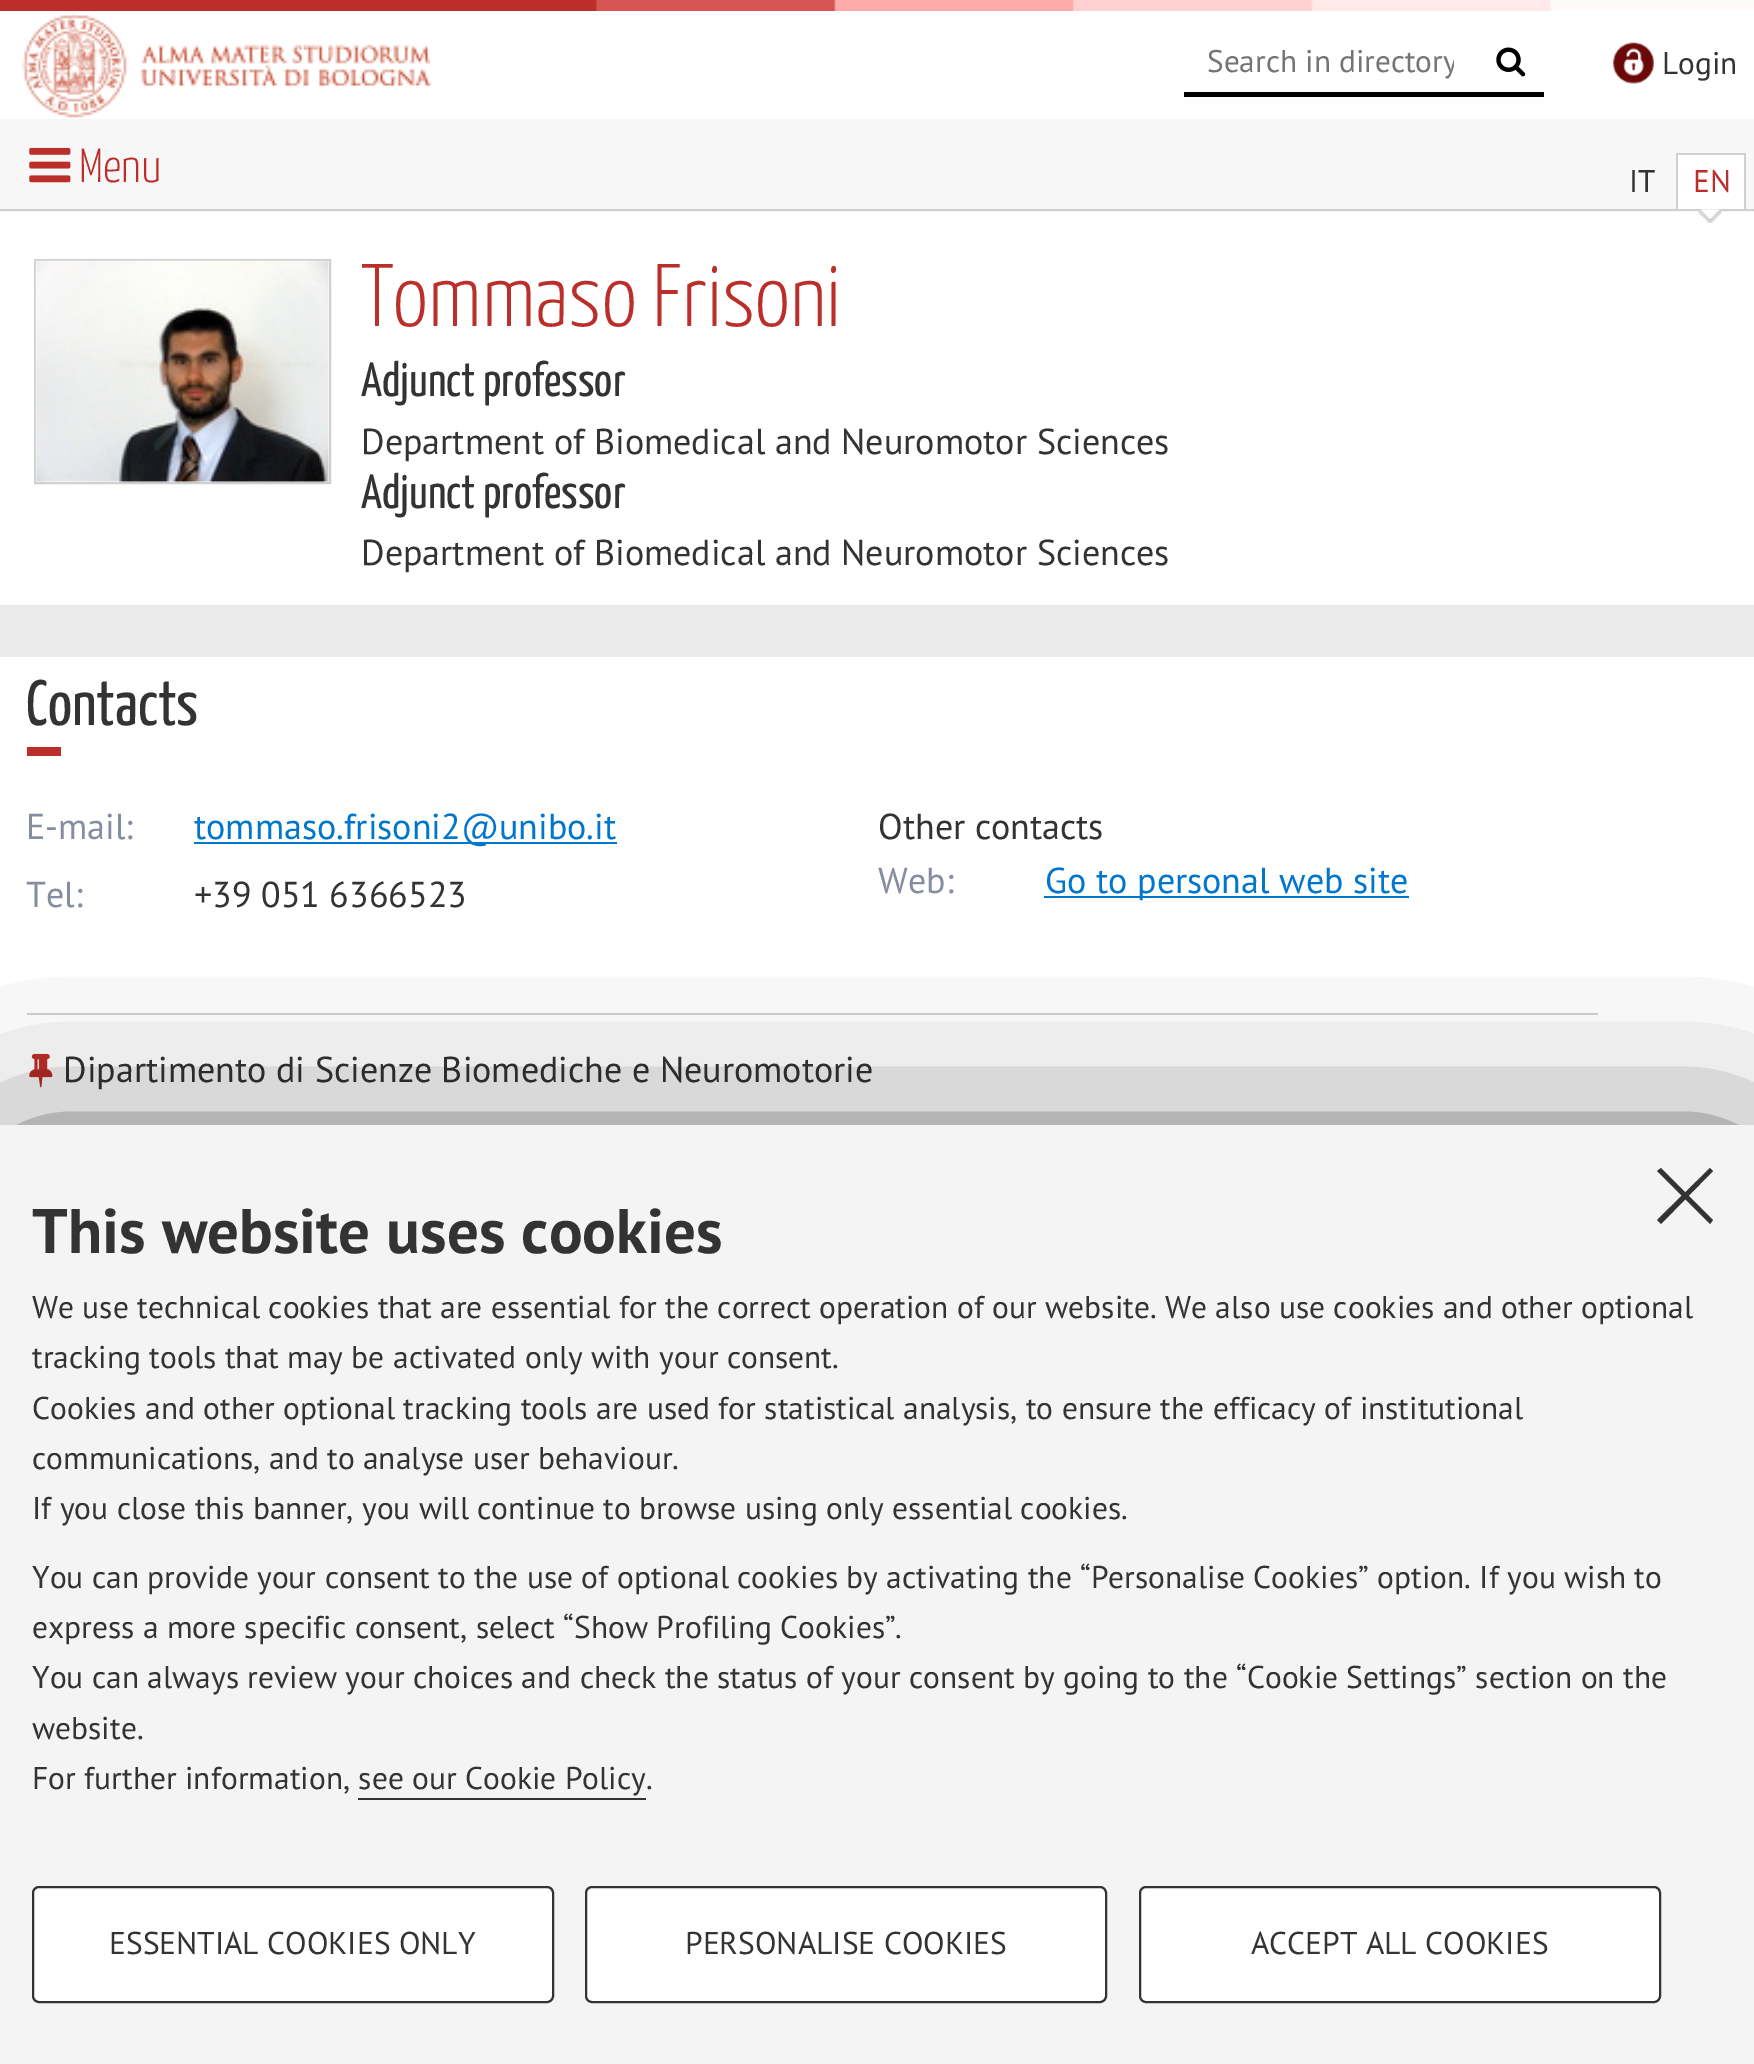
%!PS-Adobe-3.0
%%BoundingBox: 0 0 1754 2064
%%LanguageLevel: 3
%%Pages: 1
%%EndComments
%%BeginProlog
/setink { 3 { 255 div 3 1 roll } repeat setrgbcolor } def
/usefont { [ exch dup neg 0 0 3 -1 roll 0 0 ] selectfont } def
/drawtext { setink usefont moveto show } def
/fillbox { setink rectfill } def
/setalpha { dup .setfillconstantalpha .setstrokeconstantalpha } def
/rrect { 5 dict begin { /r /h /w /y /x } { exch def } forall
  x r add y moveto x w add y 2 copy h add r arct x w add y h add x 1 index r arct
  x y h add x y r arct x y 2 copy exch w add exch r arct closepath end } def
/softshadow { 12 dict begin { /a /b /q /h /w /y /x } { exch def } forall gsave /was 0 def
  9 -2 -9 { dup b mul 4 div /e exch def 1 sub .425 mul 2.718 exch exp 1 add a .99 .min exch div /now exch def
    1 1 now sub 1 was sub div sub setalpha /was now def
    w h .min e 2 mul add 0 gt { x e sub y e sub w e 2 mul add h e 2 mul add
      q e add b .6 mul add w h .min 2 div e add .min 0 .max rrect fill } if } for grestore end } def
/drawimage { 5 dict begin { /h /w /y /x /name } { exch def } forall
  gsave x y translate w h scale
  w h 8 [w 0 0 h 0 0] name (r) file false 3 colorimage grestore end } def
%%EndProlog
%%BeginSetup
<< /PageSize [1754 2064] /PageUsesTransparency true >> setpagedevice
%%EndSetup
%%Page: 1 1
0 .pushpdf14devicefilter
0 2064 translate 1 -1 scale
4 setmiterlimit
0 0 1754 2064 234 234 234 fillbox
(assets/img1.rgb) 0 0 1754 11 drawimage
0 11 1754 108 255 255 255 fillbox
(assets/img2.rgb) 22 13 411 105 drawimage
1184 92 360 5 0 0 0 fillbox
gsave
1206 41 248 40 rectclip
(Search in directory) 1207 72 /PTSans-Regular 31.25 117 117 117 drawtext
grestore
(assets/img3.rgb) 1496 47 30 30 drawimage
(assets/img4.rgb) 1613 42 41 42 drawimage
(Login) 1662 74 /PTSans-Regular 31.25 51 51 51 drawtext
0 119 1754 93 247 247 247 fillbox
0 209 1754 2 208 208 208 fillbox
(assets/img5.rgb) 29 147 42 36 drawimage
(Menu) 79 182 /YanoneKaffeesatz-Light 48 187 46 41 drawtext
(IT) 1629 192 /PTSans-Regular 31.25 51 51 51 drawtext
1678 155 66 54 255 255 255 fillbox
1676 153 70 2 208 208 208 fillbox
1744 153 2 56 208 208 208 fillbox
1676 153 2 56 208 208 208 fillbox
(EN) 1693 192 /PTSans-Regular 31.25 187 46 41 drawtext
0 212 1754 393 255 255 255 fillbox
(assets/img6.rgb) 1698 208 24 15 drawimage
208 208 208 setink
2 setlinewidth
35 260 295 223 rectstroke
(assets/img7.rgb) 35 260 294 223 drawimage
gsave
362 239 1380 339 rectclip
(Tommaso Frisoni) 361 326 /YanoneKaffeesatz-Light 88.75 187 46 41 drawtext
grestore
(Adjunct professor) 361 396 /YanoneKaffeesatz-Regular 48 51 51 51 drawtext
(Department of Biomedical and Neuromotor Sciences) 361 454 /PTSans-Regular 36 51 51 51 drawtext
(Adjunct professor) 361 508 /YanoneKaffeesatz-Regular 48 51 51 51 drawtext
(Department of Biomedical and Neuromotor Sciences) 361 565 /PTSans-Regular 36 51 51 51 drawtext
0 657 1754 468 255 255 255 fillbox
(Contacts) 26 725 /YanoneKaffeesatz-Regular 64 51 51 51 drawtext
27 747 34 9 187 46 41 fillbox
(E-mail:) 26 839 /PTSans-Regular 36 135 141 160 drawtext
194 842 423 2 0 119 204 fillbox
(tommaso.frisoni2@unibo.it) 194 839 /PTSans-Regular 36 0 119 204 drawtext
(Tel:) 26 907 /PTSans-Regular 36 135 141 160 drawtext
(+39 051 6366523) 194 907 /PTSans-Regular 36 51 51 51 drawtext
(Other contacts) 878 839 /PTSans-Regular 36 51 51 51 drawtext
(Web:) 878 893 /PTSans-Regular 36 135 141 160 drawtext
1044 896 365 2 0 119 204 fillbox
(Go to personal web site) 1045 893 /PTSans-Regular 36 0 119 204 drawtext
27 1013 1571 2 208 208 208 fillbox
(assets/img8.rgb) 29 1053 24 35 drawimage
(Dipartimento di Scienze Biomediche e Neuromotorie) 63 1082 /PTSans-Regular 36 51 51 51 drawtext
0 0 0 setink
18 1179 1719 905 0 90 1 softshadow
0 1125 1754 939 244 244 244 fillbox
51 51 51 setink
1710 1168 moveto 1713 1171 lineto 1661 1224 lineto 1657 1220 lineto closepath fill
1657 1171 moveto 1661 1168 lineto 1713 1220 lineto 1710 1224 lineto closepath fill
(This website uses cookies) 32 1253 /PTSans-Bold 63 51 51 51 drawtext
(We use technical cookies that are essential for the correct operation of our website. We also use cookies and other optional) 32 1318 /PTSans-Regular 31.5 51 51 51 drawtext
gsave
32 1181 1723 642 rectclip
(tracking tools that may be activated only with your consent.) 32 1368 /PTSans-Regular 31.5 51 51 51 drawtext
grestore
(Cookies and other optional tracking tools are used for statistical analysis, to ensure the efficacy of institutional) 32 1419 /PTSans-Regular 31.5 51 51 51 drawtext
(communications, and to analyse user behaviour.) 32 1469 /PTSans-Regular 31.5 51 51 51 drawtext
(If you close this banner, you will continue to browse using only essential cookies.) 32 1519 /PTSans-Regular 31.5 51 51 51 drawtext
(You can provide your consent to the use of optional cookies by activating the “Personalise Cookies” option. If you wish to) 32 1588 /PTSans-Regular 31.5 51 51 51 drawtext
(express a more specific consent, select “Show Profiling Cookies”.) 32 1638 /PTSans-Regular 31.5 51 51 51 drawtext
(You can always review your choices and check the status of your consent by going to the “Cookie Settings” section on the) 32 1688 /PTSans-Regular 31.5 51 51 51 drawtext
(website.) 32 1739 /PTSans-Regular 31.5 51 51 51 drawtext
(For further information, see our Cookie Policy.) 32 1789 /PTSans-Regular 31.5 51 51 51 drawtext
358 1798 288 2 51 51 51 fillbox
255 255 255 setink
33 1887 520 115 6 rrect gsave fill grestore
51 51 51 setink
stroke
(ESSENTIAL COOKIES ONLY) 109 1954 /PTSans-Regular 31.5 51 51 51 drawtext
255 255 255 setink
586 1887 520 115 6 rrect gsave fill grestore
51 51 51 setink
stroke
(PERSONALISE COOKIES) 685 1954 /PTSans-Regular 31.5 51 51 51 drawtext
255 255 255 setink
1140 1887 520 115 6 rrect gsave fill grestore
51 51 51 setink
stroke
(ACCEPT ALL COOKIES) 1251 1954 /PTSans-Regular 31.5 51 51 51 drawtext
.poppdf14devicefilter showpage
%%EOF
